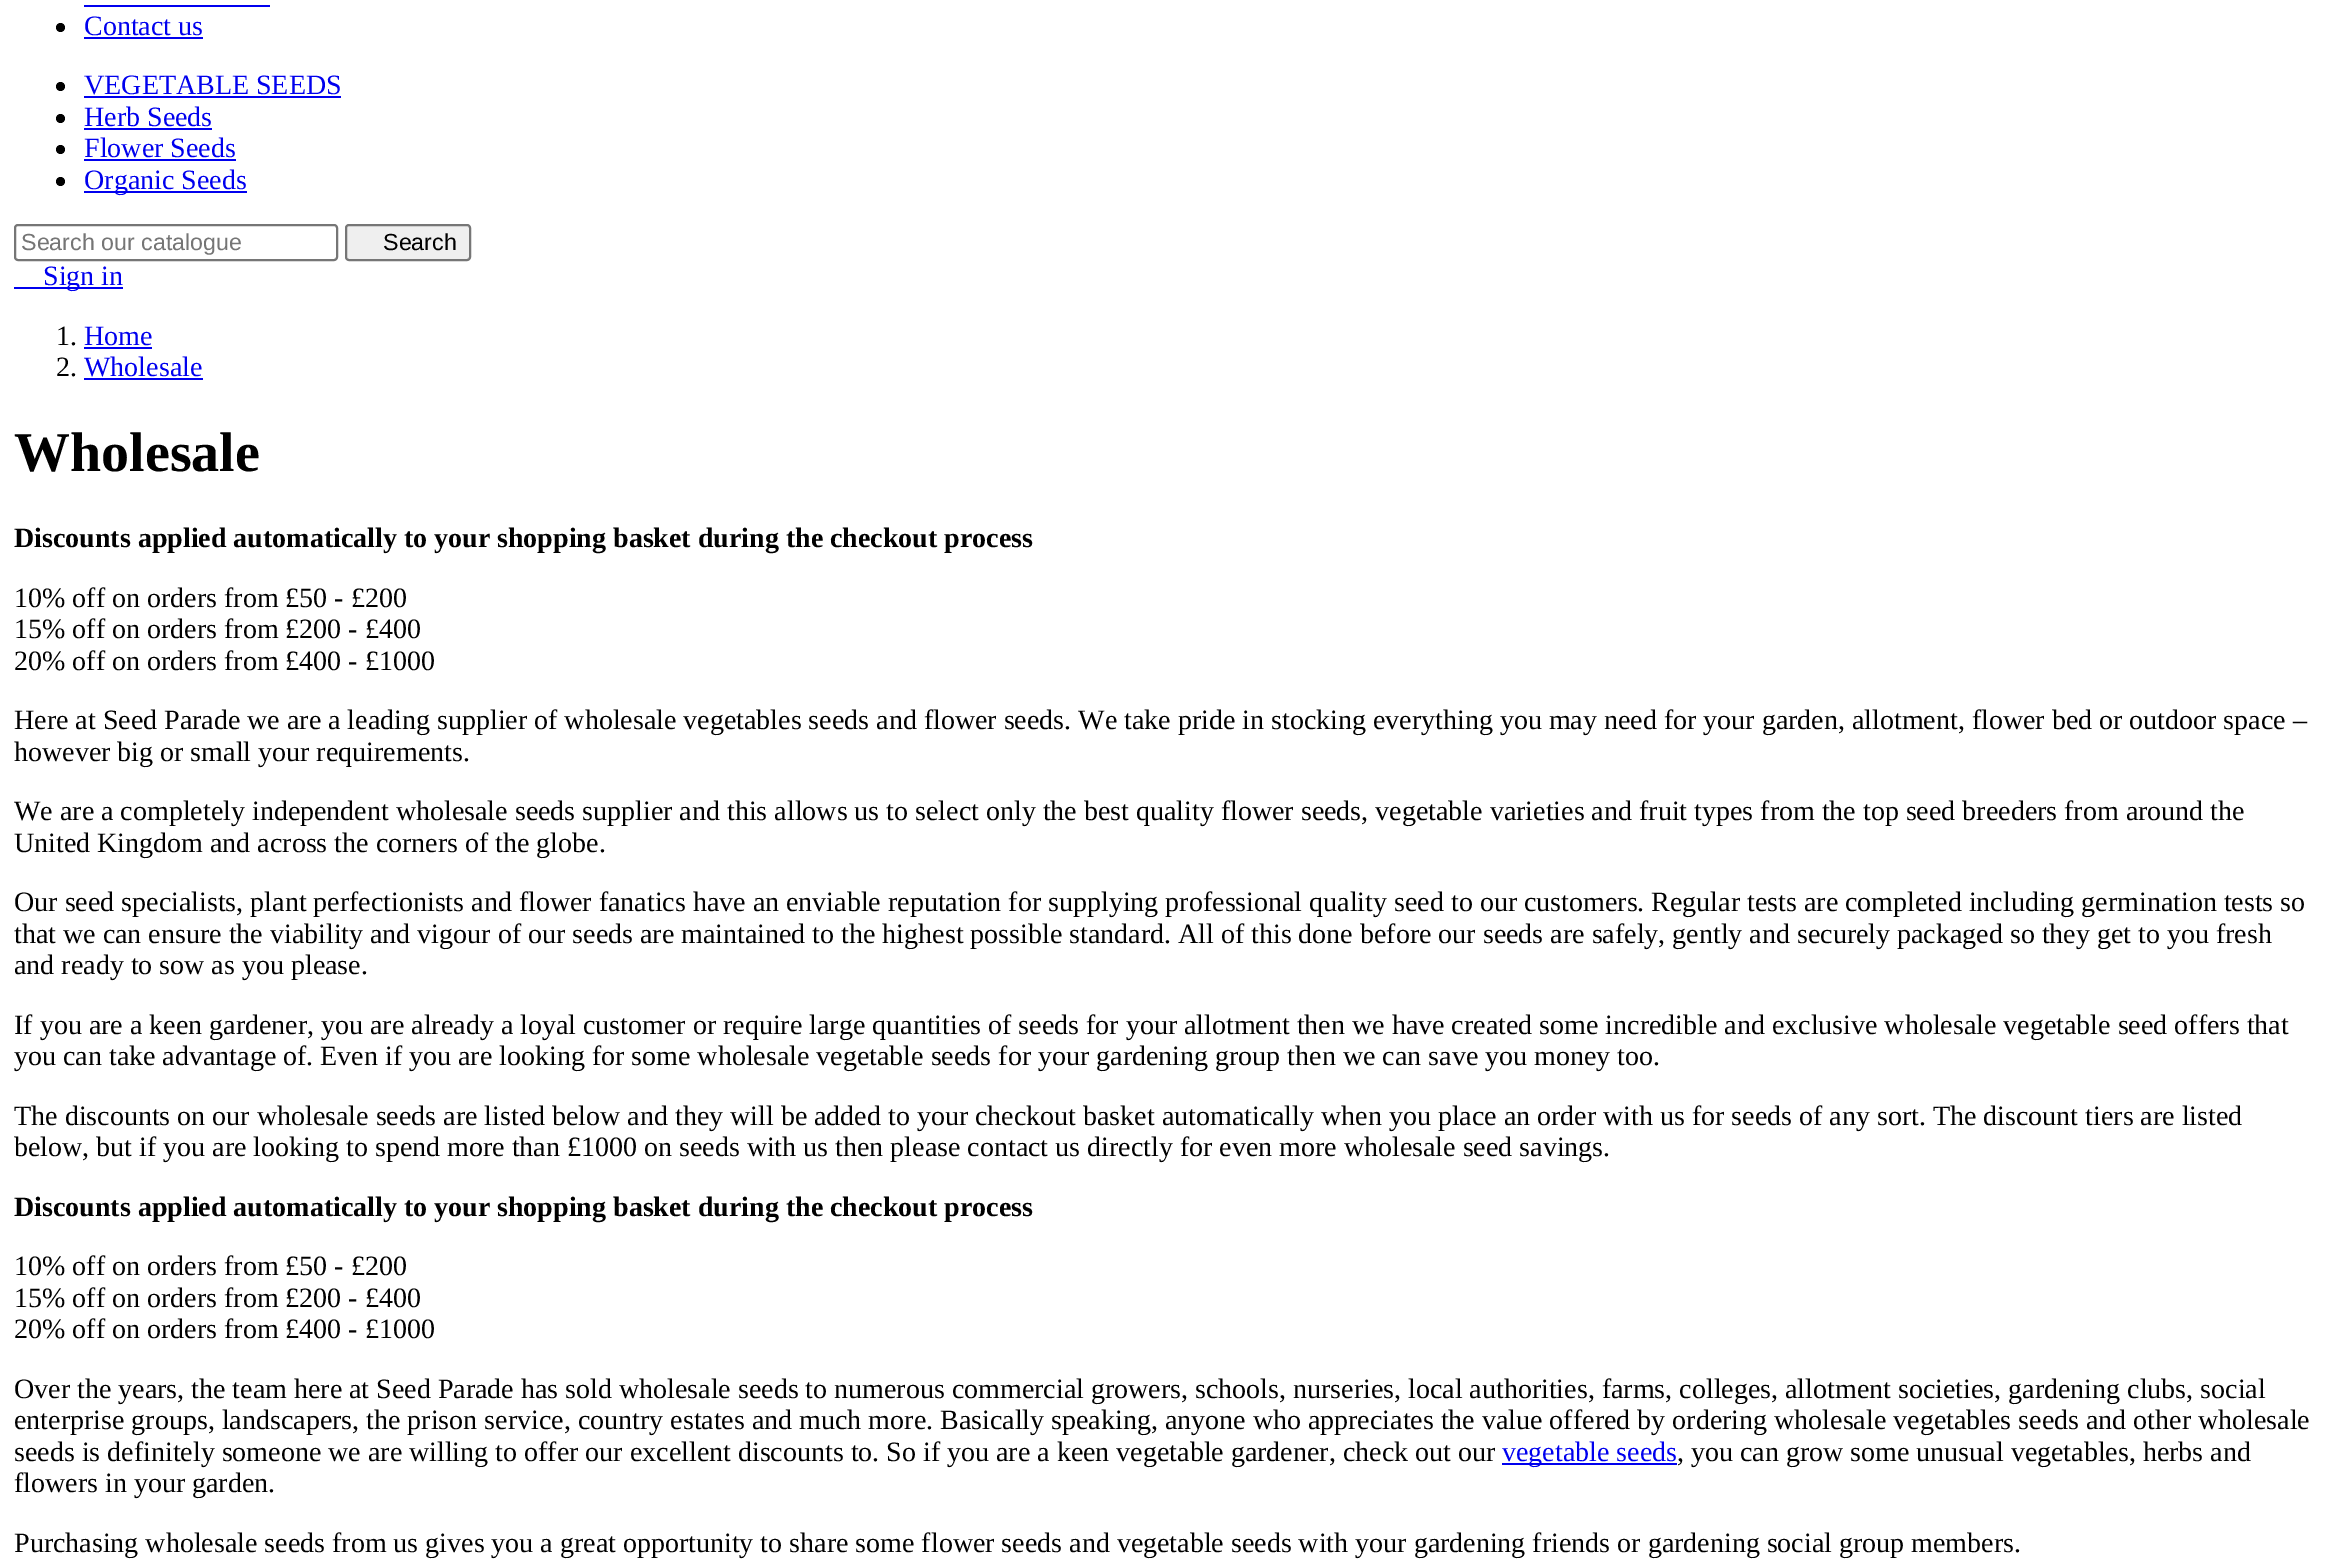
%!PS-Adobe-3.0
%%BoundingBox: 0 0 2326 1565
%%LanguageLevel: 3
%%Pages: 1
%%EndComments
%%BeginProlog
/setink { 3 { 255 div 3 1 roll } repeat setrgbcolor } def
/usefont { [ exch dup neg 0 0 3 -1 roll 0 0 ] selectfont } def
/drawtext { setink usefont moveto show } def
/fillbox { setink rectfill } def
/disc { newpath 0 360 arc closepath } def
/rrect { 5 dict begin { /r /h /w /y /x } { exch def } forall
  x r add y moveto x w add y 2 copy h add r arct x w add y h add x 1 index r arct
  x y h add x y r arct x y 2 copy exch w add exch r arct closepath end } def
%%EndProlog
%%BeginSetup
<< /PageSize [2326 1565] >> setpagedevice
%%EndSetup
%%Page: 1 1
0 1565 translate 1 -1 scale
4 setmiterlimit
0 0 2326 1565 255 255 255 fillbox
84 5 186 2 0 0 238 fillbox
0 0 0 setink
60.5 27.5 4.5 disc fill
(Contact us) 84 35 /LiberationSerif-Regular 28 0 0 238 drawtext
84 37 119 2 0 0 238 fillbox
0 0 0 setink
60.5 86.5 4.5 disc fill
(VEGETABLE SEEDS) 84 94 /LiberationSerif-Regular 28 0 0 238 drawtext
84 96 257 2 0 0 238 fillbox
0 0 0 setink
60.5 118.5 4.5 disc fill
(Herb Seeds) 84 126 /LiberationSerif-Regular 28 0 0 238 drawtext
84 128 128 2 0 0 238 fillbox
0 0 0 setink
60.5 149.5 4.5 disc fill
(Flower Seeds) 84 157 /LiberationSerif-Regular 28 0 0 238 drawtext
84 159 152 2 0 0 238 fillbox
0 0 0 setink
60.5 181.5 4.5 disc fill
84 191 163 2 0 0 238 fillbox
(Organic Seeds) 84 189 /LiberationSerif-Regular 28 0 0 238 drawtext
118 118 118 setink
2 setlinewidth
15 225 322 35 3 rrect stroke
(Search our catalogue) 21 250 /LiberationSans-Regular 23.25 117 117 117 drawtext
239 239 239 setink
346 225 124 35 3 rrect gsave fill grestore
118 118 118 setink
stroke
(Search) 383 250 /LiberationSans-Regular 23.25 0 0 0 drawtext
14 287 109 2 0 0 238 fillbox
(Sign in) 43 285 /LiberationSerif-Regular 28 0 0 238 drawtext
(1.) 56 345 /LiberationSerif-Regular 28 0 0 0 drawtext
(Home) 84 345 /LiberationSerif-Regular 28 0 0 238 drawtext
84 347 68 2 0 0 238 fillbox
(2.) 56 376 /LiberationSerif-Regular 28 0 0 0 drawtext
(Wholesale) 84 376 /LiberationSerif-Regular 28 0 0 238 drawtext
84 378 119 2 0 0 238 fillbox
(Wholesale) 14 471 /LiberationSerif-Bold 56 0 0 0 drawtext
(Discounts applied automatically to your shopping basket during the checkout process) 14 547 /LiberationSerif-Bold 28 0 0 0 drawtext
(10% off on orders from £50 - £200) 14 607 /LiberationSerif-Regular 28 0 0 0 drawtext
(15% off on orders from £200 - £400) 14 638 /LiberationSerif-Regular 28 0 0 0 drawtext
(20% off on orders from £400 - £1000) 14 670 /LiberationSerif-Regular 28 0 0 0 drawtext
(Here at Seed Parade we are a leading supplier of wholesale vegetables seeds and flower seeds. We take pride in stocking everything you may need for your garden, allotment, flower bed or outdoor space –) 14 729 /LiberationSerif-Regular 28 0 0 0 drawtext
(however big or small your requirements.) 14 761 /LiberationSerif-Regular 28 0 0 0 drawtext
(We are a completely independent wholesale seeds supplier and this allows us to select only the best quality flower seeds, vegetable varieties and fruit types from the top seed breeders from around the) 14 820 /LiberationSerif-Regular 28 0 0 0 drawtext
(United Kingdom and across the corners of the globe.) 14 852 /LiberationSerif-Regular 28 0 0 0 drawtext
(Our seed specialists, plant perfectionists and flower fanatics have an enviable reputation for supplying professional quality seed to our customers. Regular tests are completed including germination tests so) 14 911 /LiberationSerif-Regular 28 0 0 0 drawtext
(that we can ensure the viability and vigour of our seeds are maintained to the highest possible standard. All of this done before our seeds are safely, gently and securely packaged so they get to you fresh) 14 943 /LiberationSerif-Regular 28 0 0 0 drawtext
(and ready to sow as you please.) 14 974 /LiberationSerif-Regular 28 0 0 0 drawtext
(If you are a keen gardener, you are already a loyal customer or require large quantities of seeds for your allotment then we have created some incredible and exclusive wholesale vegetable seed offers that) 14 1034 /LiberationSerif-Regular 28 0 0 0 drawtext
(you can take advantage of. Even if you are looking for some wholesale vegetable seeds for your gardening group then we can save you money too.) 14 1065 /LiberationSerif-Regular 28 0 0 0 drawtext
(The discounts on our wholesale seeds are listed below and they will be added to your checkout basket automatically when you place an order with us for seeds of any sort. The discount tiers are listed) 14 1125 /LiberationSerif-Regular 28 0 0 0 drawtext
(below, but if you are looking to spend more than £1000 on seeds with us then please contact us directly for even more wholesale seed savings.) 14 1156 /LiberationSerif-Regular 28 0 0 0 drawtext
(Discounts applied automatically to your shopping basket during the checkout process) 14 1216 /LiberationSerif-Bold 28 0 0 0 drawtext
(10% off on orders from £50 - £200) 14 1275 /LiberationSerif-Regular 28 0 0 0 drawtext
(15% off on orders from £200 - £400) 14 1307 /LiberationSerif-Regular 28 0 0 0 drawtext
(20% off on orders from £400 - £1000) 14 1338 /LiberationSerif-Regular 28 0 0 0 drawtext
(Over the years, the team here at Seed Parade has sold wholesale seeds to numerous commercial growers, schools, nurseries, local authorities, farms, colleges, allotment societies, gardening clubs, social) 14 1398 /LiberationSerif-Regular 28 0 0 0 drawtext
(enterprise groups, landscapers, the prison service, country estates and much more. Basically speaking, anyone who appreciates the value offered by ordering wholesale vegetables seeds and other wholesale) 14 1429 /LiberationSerif-Regular 28 0 0 0 drawtext
(seeds is definitely someone we are willing to offer our excellent discounts to. So if you are a keen vegetable gardener, check out our) 14 1461 /LiberationSerif-Regular 28 0 0 0 drawtext
1502 1463 175 2 0 0 238 fillbox
(vegetable seeds) 1502 1461 /LiberationSerif-Regular 28 0 0 238 drawtext
(, you can grow some unusual vegetables, herbs and) 1677 1461 /LiberationSerif-Regular 28 0 0 0 drawtext
(flowers in your garden.) 14 1492 /LiberationSerif-Regular 28 0 0 0 drawtext
(Purchasing wholesale seeds from us gives you a great opportunity to share some flower seeds and vegetable seeds with your gardening friends or gardening social group members.) 14 1552 /LiberationSerif-Regular 28 0 0 0 drawtext
showpage
%%EOF
